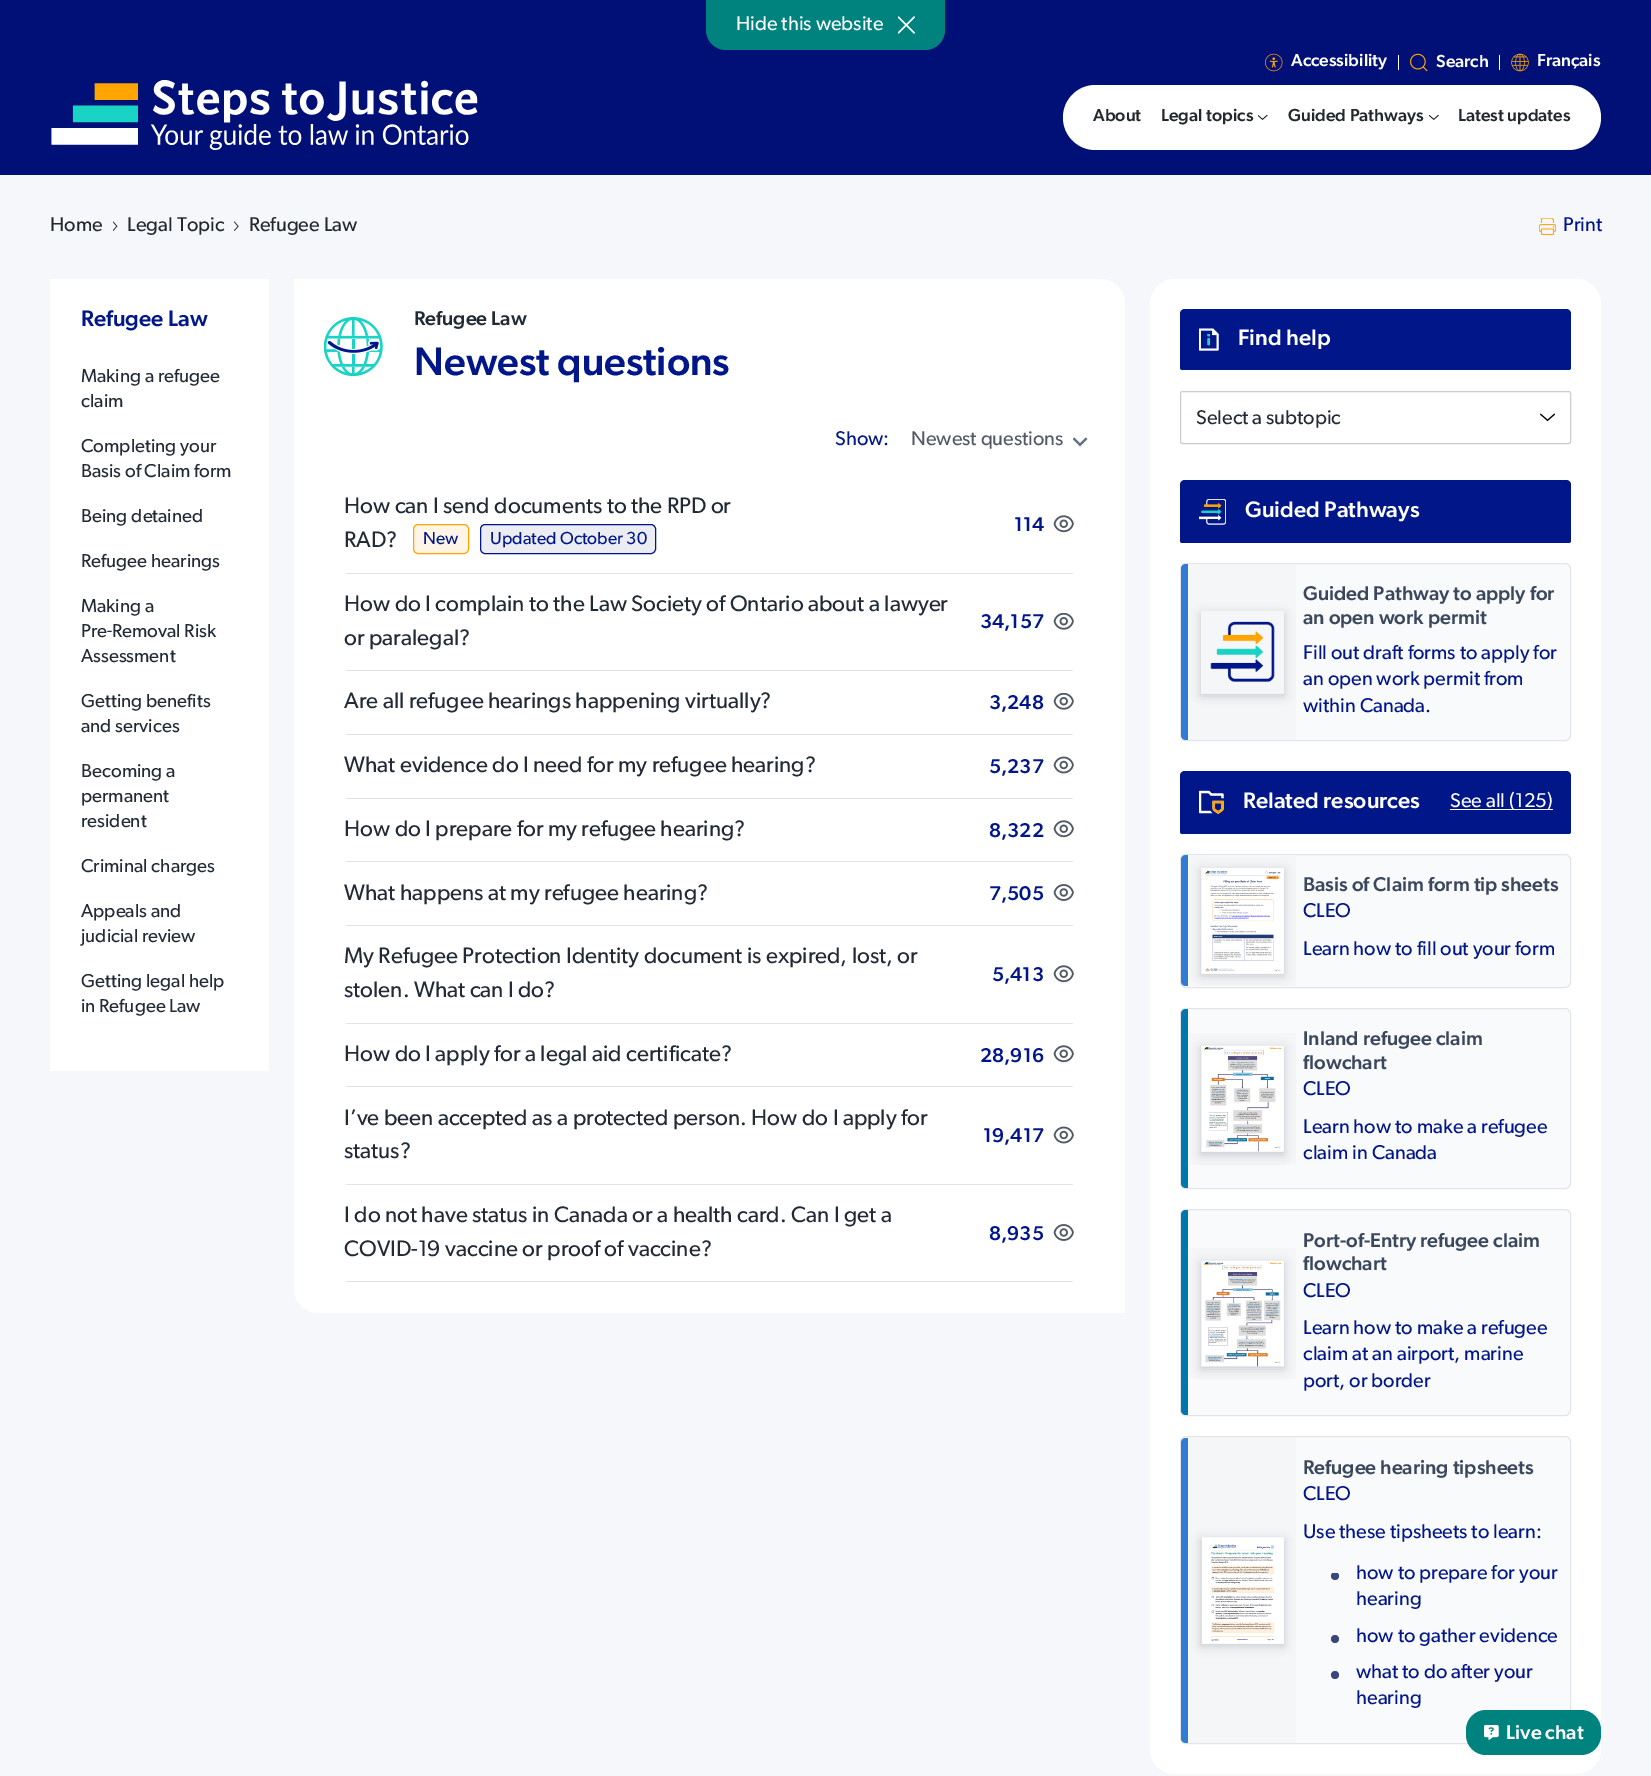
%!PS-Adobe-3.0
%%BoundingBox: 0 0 1651 1776
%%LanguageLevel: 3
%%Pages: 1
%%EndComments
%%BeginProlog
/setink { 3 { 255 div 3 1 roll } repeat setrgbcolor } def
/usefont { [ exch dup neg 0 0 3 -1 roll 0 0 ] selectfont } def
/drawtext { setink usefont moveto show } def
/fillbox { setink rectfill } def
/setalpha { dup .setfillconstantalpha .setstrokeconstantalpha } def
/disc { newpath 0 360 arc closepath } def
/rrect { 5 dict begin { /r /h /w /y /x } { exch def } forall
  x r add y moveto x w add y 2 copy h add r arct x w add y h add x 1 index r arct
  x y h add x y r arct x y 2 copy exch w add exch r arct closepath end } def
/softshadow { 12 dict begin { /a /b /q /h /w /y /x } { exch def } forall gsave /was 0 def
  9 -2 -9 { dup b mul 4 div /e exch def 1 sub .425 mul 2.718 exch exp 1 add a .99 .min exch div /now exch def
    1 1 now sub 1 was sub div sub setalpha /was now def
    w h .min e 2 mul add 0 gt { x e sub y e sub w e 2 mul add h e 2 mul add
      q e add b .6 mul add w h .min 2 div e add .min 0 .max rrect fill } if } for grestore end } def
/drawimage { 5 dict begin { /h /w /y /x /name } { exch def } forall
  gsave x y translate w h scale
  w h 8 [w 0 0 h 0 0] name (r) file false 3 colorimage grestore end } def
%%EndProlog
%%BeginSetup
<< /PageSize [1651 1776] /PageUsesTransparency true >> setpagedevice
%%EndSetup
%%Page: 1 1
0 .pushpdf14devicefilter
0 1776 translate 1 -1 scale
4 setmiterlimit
0 0 1651 1776 246 247 251 fillbox
0 0 1651 175 0 16 118 fillbox
0 130 126 setink
706 0 moveto 945 0 lineto 945 30 lineto 945 41 936 50 925 50 curveto 726 50 lineto 715 50 706 41 706 30 curveto closepath fill
(Hide this website) 736 30 /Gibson-Regular 20 255 255 255 drawtext
(assets/img1.rgb) 898 16 17 18 drawimage
(assets/img2.rgb) 51 80 427 70 drawimage
(assets/img3.rgb) 1265 53 18 19 drawimage
(Accessibility) 1291 66 /Gibson-Medium 17.5 255 255 255 drawtext
1398 55 1 15 255 255 255 fillbox
(assets/img4.rgb) 1410 53 18 19 drawimage
(Search) 1436 67 /Gibson-Medium 17.5 255 255 255 drawtext
1499 55 1 15 255 255 255 fillbox
(assets/img5.rgb) 1511 53 18 19 drawimage
(Français) 1537 66 /Gibson-Medium 17.5 255 255 255 drawtext
1063 85 538 65 32.5 rrect fill
(About) 1093 121 /Gibson-Medium 17.5 34 41 45 drawtext
(Legal topics) 1161 121 /Gibson-Medium 17.5 34 41 45 drawtext
(assets/img6.rgb) 1258 115 10 5 drawimage
(Guided Pathways) 1288 121 /Gibson-Medium 17.5 34 41 45 drawtext
(assets/img7.rgb) 1429 115 10 5 drawimage
(Latest updates) 1458 121 /Gibson-Medium 17.5 34 41 45 drawtext
(Home) 50 231 /Gibson-Regular 20 34 41 45 drawtext
(assets/img8.rgb) 113 221 5 10 drawimage
(Legal Topic) 127 231 /Gibson-Regular 20 34 41 45 drawtext
(assets/img9.rgb) 234 221 5 10 drawimage
(Refugee Law) 249 231 /Gibson-Regular 20 34 41 45 drawtext
(assets/img10.rgb) 1539 218 17 17 drawimage
(Print) 1563 231 /Gibson-Regular 20 0 22 137 drawtext
50 279 219 792 255 255 255 fillbox
(Refugee Law) 81 326 /Gibson-Medium 22.5 0 22 137 drawtext
(Making a refugee) 81 382 /Gibson-Regular 18.75 33 43 54 drawtext
(claim) 81 407 /Gibson-Regular 18.75 33 43 54 drawtext
(Completing your) 81 452 /Gibson-Regular 18.75 33 43 54 drawtext
(Basis of Claim form) 81 477 /Gibson-Regular 18.75 33 43 54 drawtext
(Being detained) 81 522 /Gibson-Regular 18.75 33 43 54 drawtext
(Refugee hearings) 81 567 /Gibson-Regular 18.75 33 43 54 drawtext
(Making a) 81 612 /Gibson-Regular 18.75 33 43 54 drawtext
(Pre) 81 637 /Gibson-Regular 18.75 33 43 54 drawtext
(‑) 107 637 /Roboto-Regular 18.75 33 43 54 drawtext
(Removal Risk) 112 637 /Gibson-Regular 18.75 33 43 54 drawtext
(Assessment) 81 662 /Gibson-Regular 18.75 33 43 54 drawtext
(Getting benefits) 81 707 /Gibson-Regular 18.75 33 43 54 drawtext
(and services) 81 732 /Gibson-Regular 18.75 33 43 54 drawtext
(Becoming a) 81 777 /Gibson-Regular 18.75 33 43 54 drawtext
(permanent) 81 802 /Gibson-Regular 18.75 33 43 54 drawtext
(resident) 81 827 /Gibson-Regular 18.75 33 43 54 drawtext
(Criminal charges) 81 872 /Gibson-Regular 18.75 33 43 54 drawtext
(Appeals and) 81 917 /Gibson-Regular 18.75 33 43 54 drawtext
(judicial review) 81 942 /Gibson-Regular 18.75 33 43 54 drawtext
(Getting legal help) 81 987 /Gibson-Regular 18.75 33 43 54 drawtext
(in Refugee Law) 81 1012 /Gibson-Regular 18.75 33 43 54 drawtext
255 255 255 setink
294 279 moveto 1100 279 lineto 1114 279 1125 290 1125 304 curveto 1125 1313 lineto 319 1313 lineto 305 1313 294 1302 294 1288 curveto closepath fill
(assets/img11.rgb) 324 317 59 59 drawimage
(Refugee Law) 414 325 /Gibson-Medium 20 33 43 54 drawtext
(Newest questions) 414 375 /Gibson-Medium 40 0 22 137 drawtext
(Show:) 835 445 /Gibson-Regular 20 0 22 137 drawtext
(Newest questions) 911 445 /Gibson-Regular 20 79 90 101 drawtext
(assets/img12.rgb) 1073 437 15 10 drawimage
(How can I send documents to the RPD or) 344 513 /Gibson-Regular 22.5 33 43 54 drawtext
(RAD?) 344 547 /Gibson-Regular 22.5 33 43 54 drawtext
254 245 230 setink
413.5 524.5 55 29 4.5 rrect gsave fill grestore
255 164 0 setink
stroke
(New) 423 544 /Gibson-Regular 17.5 0 22 137 drawtext
235 237 242 setink
480.5 524.5 175 29 4.5 rrect gsave fill grestore
0 22 137 setink
stroke
(Updated October 30) 490 544 /Gibson-Regular 17.5 0 22 137 drawtext
(assets/img13.rgb) 1053 515 21 18 drawimage
(114) 1014 531 /Gibson-Medium 20 0 22 137 drawtext
346 573 727 1 225 229 233 fillbox
(How do I complain to the Law Society of Ontario about a lawyer) 344 611 /Gibson-Regular 22.5 33 43 54 drawtext
(or paralegal?) 344 645 /Gibson-Regular 22.5 33 43 54 drawtext
(assets/img14.rgb) 1053 613 21 17 drawimage
(34,157) 980 628 /Gibson-Medium 20 0 22 137 drawtext
346 670 727 1 225 229 233 fillbox
(Are all refugee hearings happening virtually?) 344 708 /Gibson-Regular 22.5 33 43 54 drawtext
(assets/img14.rgb) 1053 693 21 17 drawimage
(3,248) 989 709 /Gibson-Medium 20 0 22 137 drawtext
346 734 727 1 225 229 233 fillbox
(What evidence do I need for my refugee hearing?) 344 772 /Gibson-Regular 22.5 33 43 54 drawtext
(assets/img15.rgb) 1053 756 21 18 drawimage
(5,237) 989 773 /Gibson-Medium 20 0 22 137 drawtext
346 798 727 1 225 229 233 fillbox
(How do I prepare for my refugee hearing?) 344 836 /Gibson-Regular 22.5 33 43 54 drawtext
(assets/img13.rgb) 1053 820 21 18 drawimage
(8,322) 989 837 /Gibson-Medium 20 0 22 137 drawtext
346 861 727 1 225 229 233 fillbox
(What happens at my refugee hearing?) 344 900 /Gibson-Regular 22.5 33 43 54 drawtext
(assets/img16.rgb) 1053 884 21 17 drawimage
(7,505) 989 900 /Gibson-Medium 20 0 22 137 drawtext
346 925 727 1 225 229 233 fillbox
(My Refugee Protection Identity document is expired, lost, or) 344 963 /Gibson-Regular 22.5 33 43 54 drawtext
(stolen. What can I do?) 344 997 /Gibson-Regular 22.5 33 43 54 drawtext
(assets/img13.rgb) 1053 965 21 18 drawimage
(5,413) 992 981 /Gibson-Medium 20 0 22 137 drawtext
346 1023 727 1 225 229 233 fillbox
(How do I apply for a legal aid certificate?) 344 1061 /Gibson-Regular 22.5 33 43 54 drawtext
(assets/img13.rgb) 1053 1045 21 18 drawimage
(28,916) 980 1062 /Gibson-Medium 20 0 22 137 drawtext
346 1086 727 1 225 229 233 fillbox
(I’ve been accepted as a protected person. How do I apply for) 344 1125 /Gibson-Regular 22.5 33 43 54 drawtext
(status?) 344 1158 /Gibson-Regular 22.5 33 43 54 drawtext
(assets/img15.rgb) 1053 1126 21 18 drawimage
(19,417) 983 1142 /Gibson-Medium 20 0 22 137 drawtext
346 1184 727 1 225 229 233 fillbox
(I do not have status in Canada or a health card. Can I get a) 344 1222 /Gibson-Regular 22.5 33 43 54 drawtext
(COVID-19 vaccine or proof of vaccine?) 344 1256 /Gibson-Regular 22.5 33 43 54 drawtext
(assets/img16.rgb) 1053 1224 21 17 drawimage
(8,935) 989 1240 /Gibson-Medium 20 0 22 137 drawtext
346 1281 727 1 225 229 233 fillbox
255 255 255 setink
1150 279 451 1495 25 rrect fill
0 22 137 setink
1185 309 moveto 1566 309 lineto 1569 309 1571 311 1571 314 curveto 1571 367.5 lineto 1571 369 1570 370 1568.5 370 curveto 1182.5 370 lineto 1181 370 1180 369 1180 367.5 curveto 1180 314 lineto 1180 311 1182 309 1185 309 curveto closepath fill
(assets/img17.rgb) 1199 328 20 23 drawimage
(Find help) 1238 345 /Gibson-Medium 22.5 255 255 255 drawtext
204 204 204 setink
1180.5 391.5 390 52 2 rrect stroke
(Select a subtopic) 1196 424 /Gibson-Regular 20 33 43 54 drawtext
(assets/img18.rgb) 1540 413 15 9 drawimage
0 22 137 setink
1185 480 moveto 1566 480 lineto 1569 480 1571 482 1571 485 curveto 1571 540.5 lineto 1571 542 1570 543 1568.5 543 curveto 1182.5 543 lineto 1181 543 1180 542 1180 540.5 curveto 1180 485 lineto 1180 482 1182 480 1185 480 curveto closepath fill
(assets/img19.rgb) 1199 499 27 26 drawimage
(Guided Pathways) 1245 517 /Gibson-Medium 22.5 255 255 255 drawtext
gsave
1180 480 391 261 5 rrect clip newpath
249 250 251 setink
1180 563 391 178 6 rrect fill
grestore
225 229 233 setink
1180.5 563.5 390 177 5.5 rrect stroke
48 124 212 setink
1186 564 moveto 1188 564 lineto 1188 740 lineto 1186 740 lineto 1183 740 1181 738 1181 735 curveto 1181 569 lineto 1181 566 1183 564 1186 564 curveto closepath fill
1189 564 107 176 245 246 248 fillbox
gsave
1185 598 moveto 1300 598 lineto 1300 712 lineto 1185 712 lineto closepath 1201 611 moveto 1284 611 lineto 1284 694 lineto 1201 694 lineto closepath eoclip newpath
10 26 54 setink
1201 614 83 82 0 5 0.2 softshadow
grestore
(assets/img20.rgb) 1210 621 65 61 drawimage
(Guided Pathway to apply for) 1303 600 /Gibson-Medium 20 58 71 93 drawtext
(an open work permit) 1303 624 /Gibson-Medium 20 58 71 93 drawtext
(Fill out draft forms to apply for) 1303 659 /Gibson-Regular 20 0 22 137 drawtext
(an open work permit from) 1303 685 /Gibson-Regular 20 0 22 137 drawtext
(within Canada.) 1303 712 /Gibson-Regular 20 0 22 137 drawtext
1185 771 moveto 1566 771 lineto 1569 771 1571 773 1571 776 curveto 1571 831.5 lineto 1571 833 1570 834 1568.5 834 curveto 1182.5 834 lineto 1181 834 1180 833 1180 831.5 curveto 1180 776 lineto 1180 773 1182 771 1185 771 curveto closepath fill
(assets/img21.rgb) 1199 790 25 24 drawimage
(Related resources) 1243 808 /Gibson-Medium 22.5 255 255 255 drawtext
1450 809 103 1 255 255 255 fillbox
(See all \(125\)) 1450 807 /Gibson-Regular 20 255 255 255 drawtext
249 250 251 setink
1180.5 854.5 390 133 5.5 rrect gsave fill grestore
225 229 233 setink
stroke
48 124 212 setink
1186 855 moveto 1188 855 lineto 1188 986 lineto 1186 986 lineto 1183 986 1181 984 1181 981 curveto 1181 860 lineto 1181 857 1183 855 1186 855 curveto closepath fill
1189 855 107 131 245 246 248 fillbox
10 26 54 setink
1201 870 83 106 0 5 0.2 softshadow
(assets/img22.rgb) 1201 868 83 106 drawimage
(Basis of Claim form tip sheets) 1303 891 /Gibson-Medium 20 58 71 93 drawtext
(CLEO) 1303 917 /Gibson-Regular 20 0 22 137 drawtext
(Learn how to fill out your form) 1303 955 /Gibson-Regular 20 0 22 137 drawtext
249 250 251 setink
1180.5 1008.5 390 180 5.5 rrect gsave fill grestore
225 229 233 setink
stroke
2 119 173 setink
1186 1009 moveto 1188 1009 lineto 1188 1188 lineto 1186 1188 lineto 1183 1188 1181 1186 1181 1183 curveto 1181 1014 lineto 1181 1011 1183 1009 1186 1009 curveto closepath fill
1189 1033 107 132 245 246 248 fillbox
10 26 54 setink
1201 1048 83 107 0 5 0.2 softshadow
(assets/img23.rgb) 1201 1045 83 107 drawimage
(Inland refugee claim) 1303 1045 /Gibson-Medium 20 58 71 93 drawtext
(flowchart) 1303 1069 /Gibson-Medium 20 58 71 93 drawtext
(CLEO) 1303 1095 /Gibson-Regular 20 0 22 137 drawtext
(Learn how to make a refugee) 1303 1133 /Gibson-Regular 20 0 22 137 drawtext
(claim in Canada) 1303 1159 /Gibson-Regular 20 0 22 137 drawtext
249 250 251 setink
1180.5 1209.5 390 206 5.5 rrect gsave fill grestore
225 229 233 setink
stroke
2 119 173 setink
1186 1210 moveto 1188 1210 lineto 1188 1415 lineto 1186 1415 lineto 1183 1415 1181 1413 1181 1410 curveto 1181 1215 lineto 1181 1212 1183 1210 1186 1210 curveto closepath fill
1189 1248 107 131 245 246 248 fillbox
10 26 54 setink
1201 1263 83 106 0 5 0.2 softshadow
(assets/img24.rgb) 1201 1260 83 107 drawimage
(Port-of-Entry refugee claim) 1303 1247 /Gibson-Medium 20 58 71 93 drawtext
(flowchart) 1303 1270 /Gibson-Medium 20 58 71 93 drawtext
(CLEO) 1303 1297 /Gibson-Regular 20 0 22 137 drawtext
(Learn how to make a refugee) 1303 1334 /Gibson-Regular 20 0 22 137 drawtext
(claim at an airport, marine) 1303 1360 /Gibson-Regular 20 0 22 137 drawtext
(port, or border) 1303 1387 /Gibson-Regular 20 0 22 137 drawtext
249 250 251 setink
1180.5 1436.5 390 307 5.5 rrect gsave fill grestore
225 229 233 setink
stroke
48 124 212 setink
1186 1438 moveto 1188 1438 lineto 1188 1743 lineto 1186 1743 lineto 1183 1743 1181 1741 1181 1738 curveto 1181 1443 lineto 1181 1440 1183 1438 1186 1438 curveto closepath fill
1189 1438 107 305 245 246 248 fillbox
10 26 54 setink
1201 1540 83 106 0 5 0.2 softshadow
(assets/img25.rgb) 1202 1537 82 107 drawimage
(Refugee hearing tipsheets) 1303 1474 /Gibson-Medium 20 58 71 93 drawtext
(CLEO) 1303 1500 /Gibson-Regular 20 0 22 137 drawtext
(Use these tipsheets to learn:) 1303 1538 /Gibson-Regular 20 0 22 137 drawtext
gsave
1331 1573 8 7 rectclip
57 71 123 setink
1335 1576 4 disc fill
grestore
(how to prepare for your) 1356 1579 /Gibson-Regular 20 0 22 137 drawtext
(hearing) 1356 1605 /Gibson-Regular 20 0 22 137 drawtext
57 71 123 setink
1335 1639 4 disc fill
(how to gather evidence) 1356 1642 /Gibson-Regular 20 0 22 137 drawtext
57 71 123 setink
1335 1675 4 disc fill
(what to do after your) 1356 1678 /Gibson-Regular 20 0 22 137 drawtext
(hearing) 1356 1704 /Gibson-Regular 20 0 22 137 drawtext
0 130 126 setink
1466 1710 135 45 20 rrect fill
(assets/img26.rgb) 1484 1725 15 15 drawimage
(Live chat) 1506 1739 /Gibson-Medium 20 255 255 255 drawtext
.poppdf14devicefilter showpage
%%EOF
